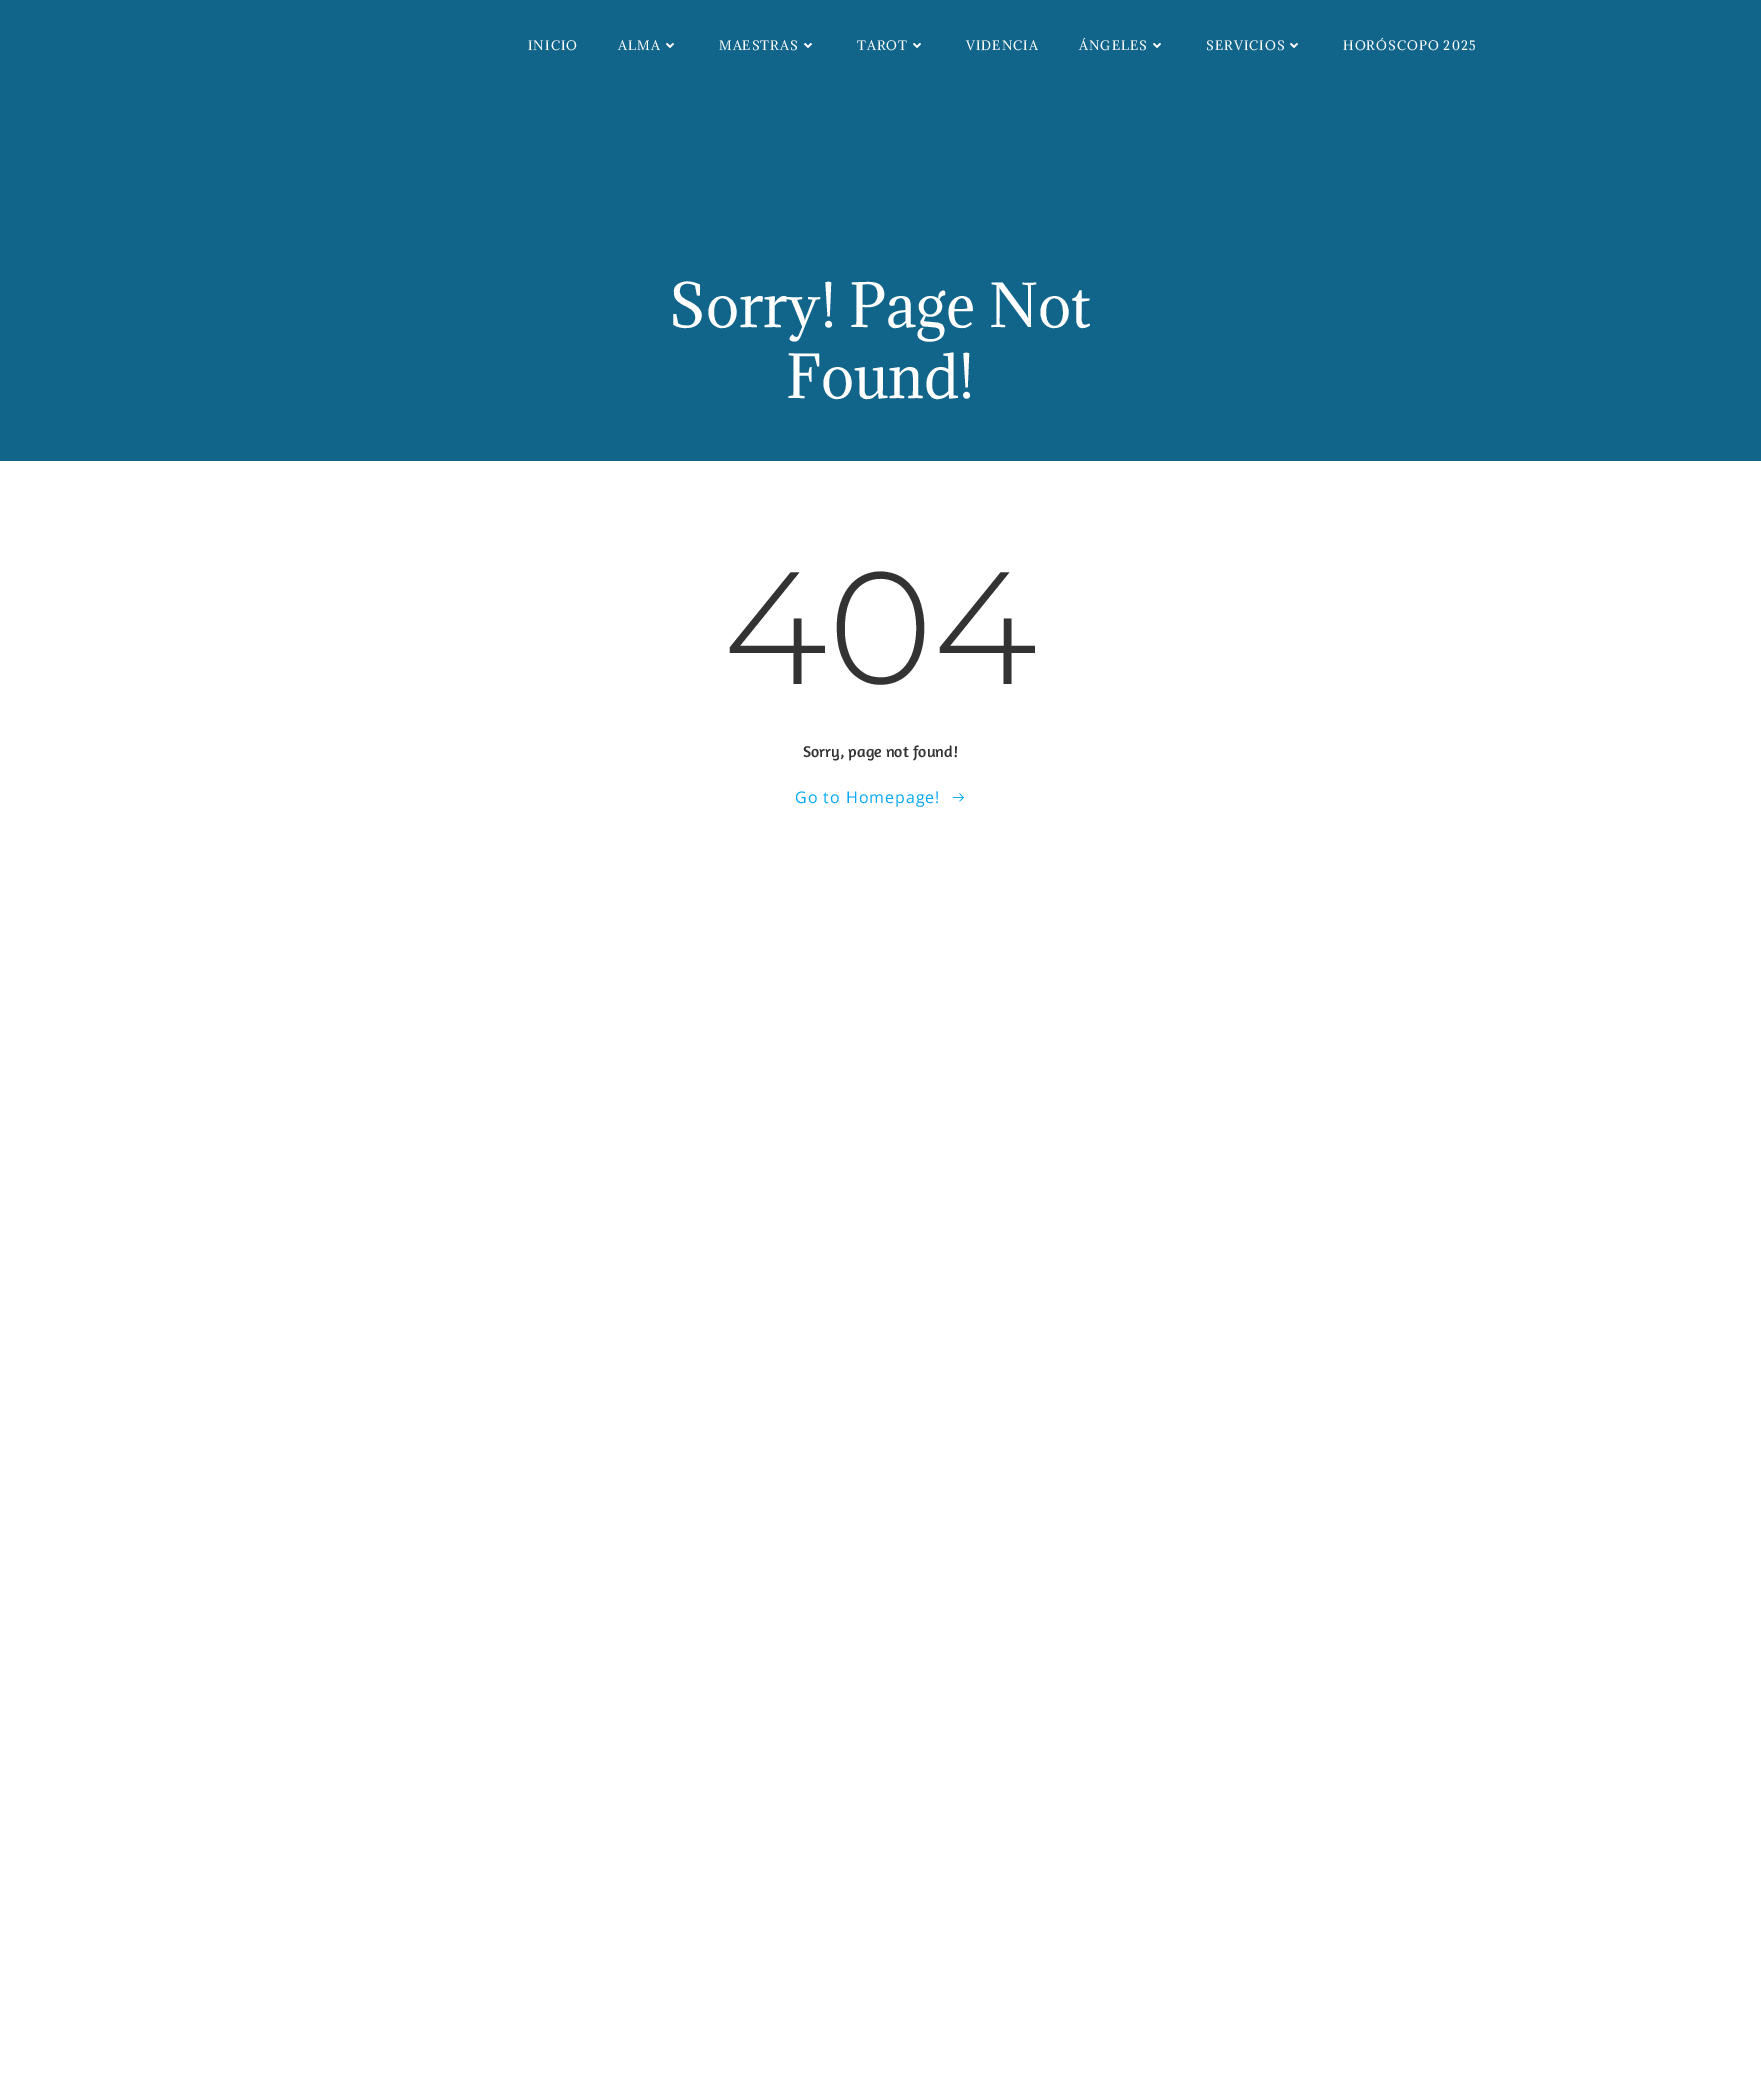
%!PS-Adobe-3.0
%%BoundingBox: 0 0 1761 2089
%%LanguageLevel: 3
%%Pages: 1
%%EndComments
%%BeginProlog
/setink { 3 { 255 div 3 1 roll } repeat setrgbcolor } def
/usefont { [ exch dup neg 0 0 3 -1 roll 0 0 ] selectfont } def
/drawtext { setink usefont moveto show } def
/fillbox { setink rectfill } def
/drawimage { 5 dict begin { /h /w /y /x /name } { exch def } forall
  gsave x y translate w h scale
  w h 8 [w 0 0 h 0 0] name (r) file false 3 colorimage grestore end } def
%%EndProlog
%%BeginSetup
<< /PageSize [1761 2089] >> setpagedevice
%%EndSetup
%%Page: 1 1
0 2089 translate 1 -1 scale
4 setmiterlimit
0 0 1761 2089 255 255 255 fillbox
0 0 1761 461 17 100 138 fillbox
/Adamina-Regular 12 usefont
255 255 255 setink
528 50 moveto 1 0 (INICIO) ashow
618 50 moveto 1 0 (ALMA) ashow
(assets/img1.rgb) 666 43 8 5 drawimage
719 50 moveto 1 0 (MAESTRAS) ashow
(assets/img1.rgb) 804 43 8 5 drawimage
857 50 moveto 1 0 (TAROT) ashow
(assets/img1.rgb) 913 43 8 5 drawimage
966 50 moveto 1 0 (VIDENCIA) ashow
1079 50 moveto 1 0 (ÁNGELES) ashow
(assets/img1.rgb) 1153 43 8 5 drawimage
1206 50 moveto 1 0 (SERVICIOS) ashow
(assets/img1.rgb) 1290 43 8 5 drawimage
1343 50 moveto 1 0 (HORÓSCOPO 2025) ashow
(Sorry! Page Not) 669 327 /Adamina-Regular 56 255 255 255 drawtext
(Found!) 786 398 /Adamina-Regular 56 255 255 255 drawtext
(404) 723 684 /Montserrat-Light 160 51 51 51 drawtext
(Sorry, page not found!) 803 757 /Amaranth-Regular 16 51 51 51 drawtext
/OpenSans-Regular 16 usefont
3 169 244 setink
795 803 moveto 1 0 (Go to Homepage!) ashow
(assets/img2.rgb) 952 793 12 9 drawimage
showpage
%%EOF
